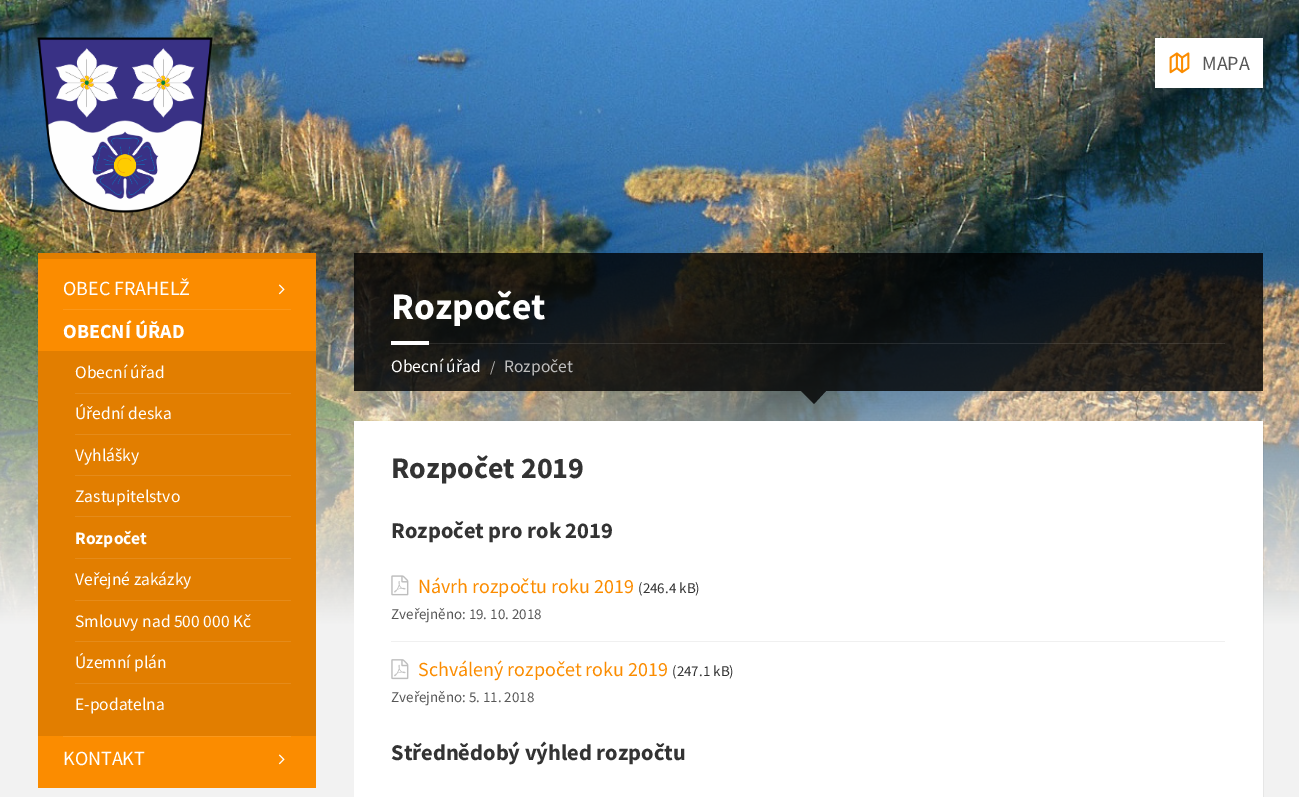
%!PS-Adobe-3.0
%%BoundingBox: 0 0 1299 797
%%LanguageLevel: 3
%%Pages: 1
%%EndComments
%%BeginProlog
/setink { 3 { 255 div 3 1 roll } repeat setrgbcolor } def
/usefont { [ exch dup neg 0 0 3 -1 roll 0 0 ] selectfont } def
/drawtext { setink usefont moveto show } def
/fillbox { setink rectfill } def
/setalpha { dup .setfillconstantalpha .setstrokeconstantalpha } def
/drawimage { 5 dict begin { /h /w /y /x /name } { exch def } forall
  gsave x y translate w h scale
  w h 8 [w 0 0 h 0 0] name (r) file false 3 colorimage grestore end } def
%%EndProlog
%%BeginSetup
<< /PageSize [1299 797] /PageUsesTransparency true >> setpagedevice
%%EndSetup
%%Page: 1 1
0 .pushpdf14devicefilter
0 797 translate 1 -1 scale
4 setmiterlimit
0 0 1299 797 242 242 242 fillbox
(assets/img1.rgb) 0 0 1299 625 drawimage
(assets/img2.rgb) 37 37 176 176 drawimage
1155 38 108 50 255 255 255 fillbox
(assets/img3.rgb) 1169 52 21 22 drawimage
(MAPA) 1202 70 /SourceSansPro-Regular 20 86 86 86 drawtext
38 259 278 529 251 140 0 fillbox
38 253 278 6 226 126 0 fillbox
(OBEC FRAHELŽ) 63 295 /SourceSansPro-Regular 20 255 255 255 drawtext
(assets/img4.rgb) 278 284 7 11 drawimage
63 309 228 1 251 152 26 fillbox
(OBECNÍ ÚŘAD) 63 338 /SourceSansPro-Bold 20 255 255 255 drawtext
38 351 278 385 226 126 0 fillbox
(Obecní úřad) 75 378 /SourceSansPro-Regular 17.5 255 255 255 drawtext
75 393 216 1 229 139 26 fillbox
(Úřední deska) 75 419 /SourceSansPro-Regular 17.5 255 255 255 drawtext
75 434 216 1 229 139 26 fillbox
(Vyhlášky) 75 461 /SourceSansPro-Regular 17.5 255 255 255 drawtext
75 475 216 1 229 139 26 fillbox
(Zastupitelstvo) 75 502 /SourceSansPro-Regular 17.5 255 255 255 drawtext
75 516 216 1 229 139 26 fillbox
(Rozpočet) 75 544 /SourceSansPro-Bold 17.5 255 255 255 drawtext
75 558 216 1 229 139 26 fillbox
(Veřejné zakázky) 75 585 /SourceSansPro-Regular 17.5 255 255 255 drawtext
75 600 216 1 229 139 26 fillbox
(Smlouvy nad 500 000 Kč) 75 627 /SourceSansPro-Regular 17.5 255 255 255 drawtext
75 641 216 1 229 139 26 fillbox
(Územní plán) 75 668 /SourceSansPro-Regular 17.5 255 255 255 drawtext
75 683 216 1 229 139 26 fillbox
(E-podatelna) 75 710 /SourceSansPro-Regular 17.5 255 255 255 drawtext
63 736 228 1 251 152 26 fillbox
(KONTAKT) 63 765 /SourceSansPro-Regular 20 255 255 255 drawtext
(assets/img4.rgb) 278 754 7 11 drawimage
0.8 setalpha
354 253 909 138 0 0 0 fillbox
0.1 setalpha
429 343 796 1 255 255 255 fillbox
1 setalpha
(Rozpočet) 391 319 /SourceSansPro-Bold 37.5 255 255 255 drawtext
391 341 38 4 255 255 255 fillbox
(Obecní úřad) 391 372 /SourceSansPro-Regular 17.5 255 255 255 drawtext
(/) 490 372 /SourceSansPro-Regular 15 190 190 190 drawtext
(Rozpočet) 504 372 /SourceSansPro-Regular 17.5 190 190 190 drawtext
0.8 setalpha
0 0 0 setink
801 391 moveto 826 391 lineto 814 404 lineto closepath fill
0.05 setalpha
355 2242 moveto 355 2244 lineto 1264 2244 lineto 1264 423 lineto 1262 423 lineto 1262 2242 lineto closepath fill
1 setalpha
354 421 909 376 255 255 255 fillbox
(Rozpočet 2019) 391 478 /SourceSansPro-Bold 30 51 51 51 drawtext
(Rozpočet pro rok 2019) 391 538 /SourceSansPro-Bold 22.5 51 51 51 drawtext
(assets/img5.rgb) 391 575 18 21 drawimage
(Návrh rozpočtu roku 2019) 418 593 /SourceSansPro-Regular 20 251 140 0 drawtext
(\(246.4 kB\)) 638 593 /SourceSansPro-Regular 15 51 51 51 drawtext
(Zveřejněno: 19. 10. 2018) 391 619 /SourceSansPro-Regular 15 86 86 86 drawtext
391 641 834 1 240 240 240 fillbox
(assets/img6.rgb) 391 659 18 21 drawimage
(Schválený rozpočet roku 2019) 418 676 /SourceSansPro-Regular 20 251 140 0 drawtext
(\(247.1 kB\)) 672 676 /SourceSansPro-Regular 15 51 51 51 drawtext
(Zveřejněno: 5. 11. 2018) 391 702 /SourceSansPro-Regular 15 86 86 86 drawtext
(Střednědobý výhled rozpočtu) 391 760 /SourceSansPro-Bold 22.5 51 51 51 drawtext
.poppdf14devicefilter showpage
%%EOF
